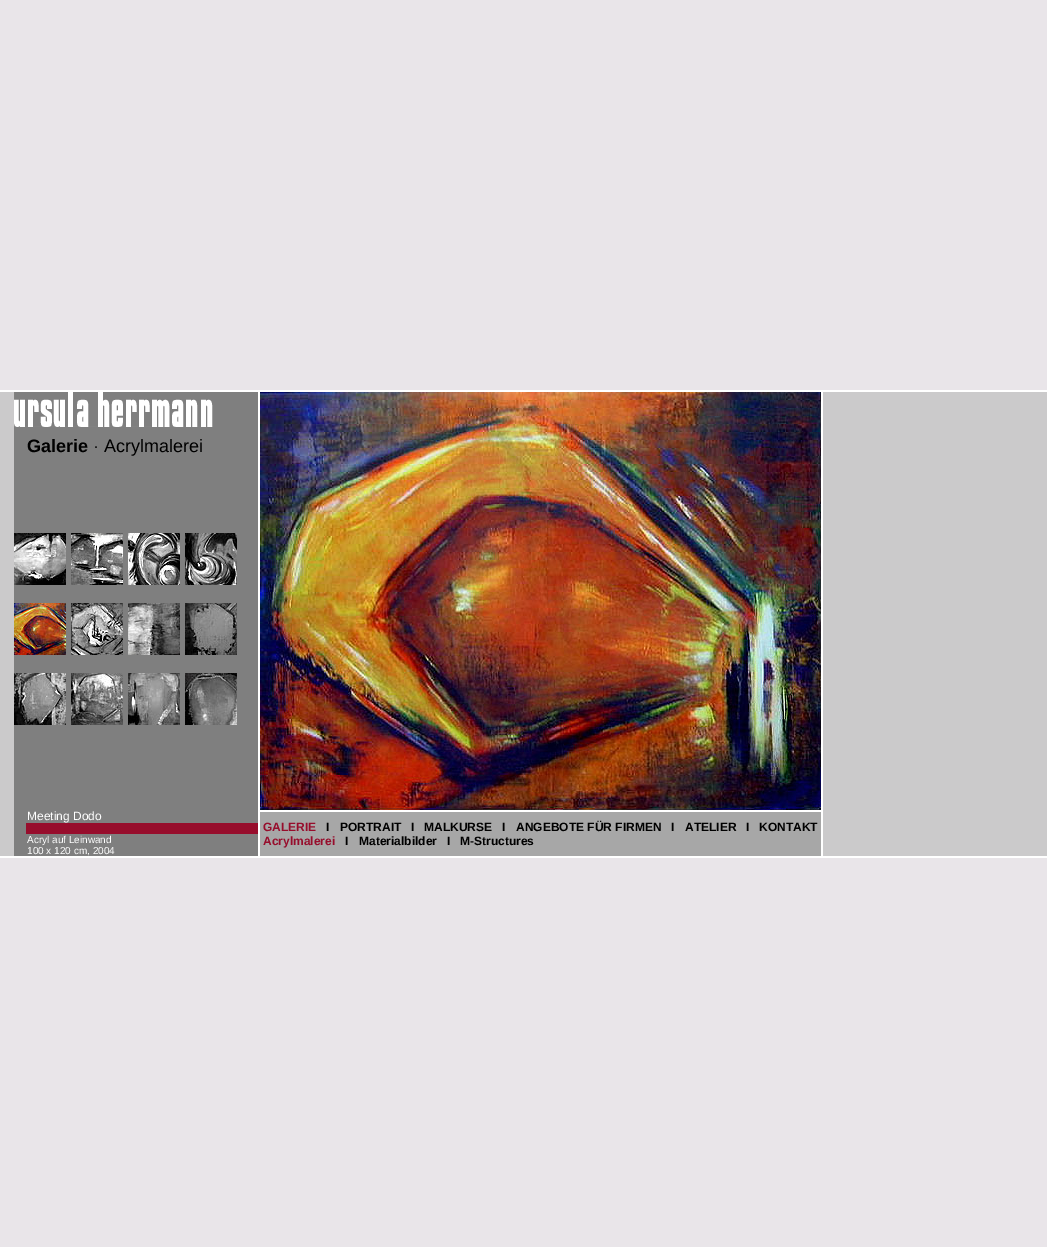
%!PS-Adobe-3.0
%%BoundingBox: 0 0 1047 1247
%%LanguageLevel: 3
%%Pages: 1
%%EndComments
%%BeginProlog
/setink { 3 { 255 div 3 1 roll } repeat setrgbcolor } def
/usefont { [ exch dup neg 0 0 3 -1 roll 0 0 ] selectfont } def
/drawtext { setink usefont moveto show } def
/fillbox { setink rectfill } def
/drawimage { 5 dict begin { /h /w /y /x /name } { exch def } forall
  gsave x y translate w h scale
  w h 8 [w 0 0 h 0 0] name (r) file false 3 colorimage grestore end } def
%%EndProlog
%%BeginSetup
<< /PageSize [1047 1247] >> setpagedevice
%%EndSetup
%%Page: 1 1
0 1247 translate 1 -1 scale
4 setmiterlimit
0 0 1047 1247 233 229 233 fillbox
0 390 1047 2 255 255 255 fillbox
0 392 1047 464 203 202 203 fillbox
14 392 244 464 127 127 127 fillbox
(assets/img1.rgb) 14 392 199 35 drawimage
(Galerie) 27 452 /LiberationSans-Bold 18 0 0 0 drawtext
(· Acrylmalerei) 93 452 /LiberationSans-Regular 18 0 0 0 drawtext
258 392 2 464 255 255 255 fillbox
821 392 2 464 255 255 255 fillbox
(assets/img2.rgb) 260 392 561 418 drawimage
260 810 561 2 255 255 255 fillbox
260 812 561 44 167 167 167 fillbox
(GALERIE) 263 831 /LiberationSans-Bold 12 151 13 44 drawtext
(I) 326 831 /LiberationSans-Bold 12 0 0 0 drawtext
(PORTRAIT) 340 831 /LiberationSans-Bold 12 0 0 0 drawtext
(I) 411 831 /LiberationSans-Bold 12 0 0 0 drawtext
(MALKURSE) 424 831 /LiberationSans-Bold 12 0 0 0 drawtext
(I) 502 831 /LiberationSans-Bold 12 0 0 0 drawtext
(ANGEBOTE FÜR FIRMEN) 516 831 /LiberationSans-Bold 12 0 0 0 drawtext
(I) 671 831 /LiberationSans-Bold 12 0 0 0 drawtext
(ATELIER) 685 831 /LiberationSans-Bold 12 0 0 0 drawtext
(I) 746 831 /LiberationSans-Bold 12 0 0 0 drawtext
(KONTAKT) 759 831 /LiberationSans-Bold 12 0 0 0 drawtext
(Acrylmalerei) 263 845 /LiberationSans-Bold 12 151 13 44 drawtext
(I) 345 845 /LiberationSans-Bold 12 0 0 0 drawtext
(Materialbilder) 359 845 /LiberationSans-Bold 12 0 0 0 drawtext
(I) 447 845 /LiberationSans-Bold 12 0 0 0 drawtext
(M-Structures) 460 845 /LiberationSans-Bold 12 0 0 0 drawtext
(assets/img3.rgb) 14 533 52 52 drawimage
(assets/img4.rgb) 71 533 52 52 drawimage
(assets/img5.rgb) 128 533 52 52 drawimage
(assets/img6.rgb) 185 533 52 52 drawimage
(assets/img7.rgb) 14 603 52 52 drawimage
(assets/img8.rgb) 71 603 52 52 drawimage
(assets/img9.rgb) 128 603 52 52 drawimage
(assets/img10.rgb) 185 603 52 52 drawimage
(assets/img11.rgb) 14 673 52 52 drawimage
(assets/img12.rgb) 71 673 52 52 drawimage
(assets/img13.rgb) 128 673 52 52 drawimage
(assets/img14.rgb) 185 673 52 52 drawimage
(Meeting Dodo) 27 820 /LiberationSans-Regular 12 255 255 255 drawtext
26 823 232 11 151 13 44 fillbox
(Acryl auf Leinwand) 27 843 /LiberationSans-Regular 10 255 255 255 drawtext
(100 x 120 cm, 2004) 27 854 /LiberationSans-Regular 10 255 255 255 drawtext
0 856 1047 2 255 255 255 fillbox
showpage
%%EOF
